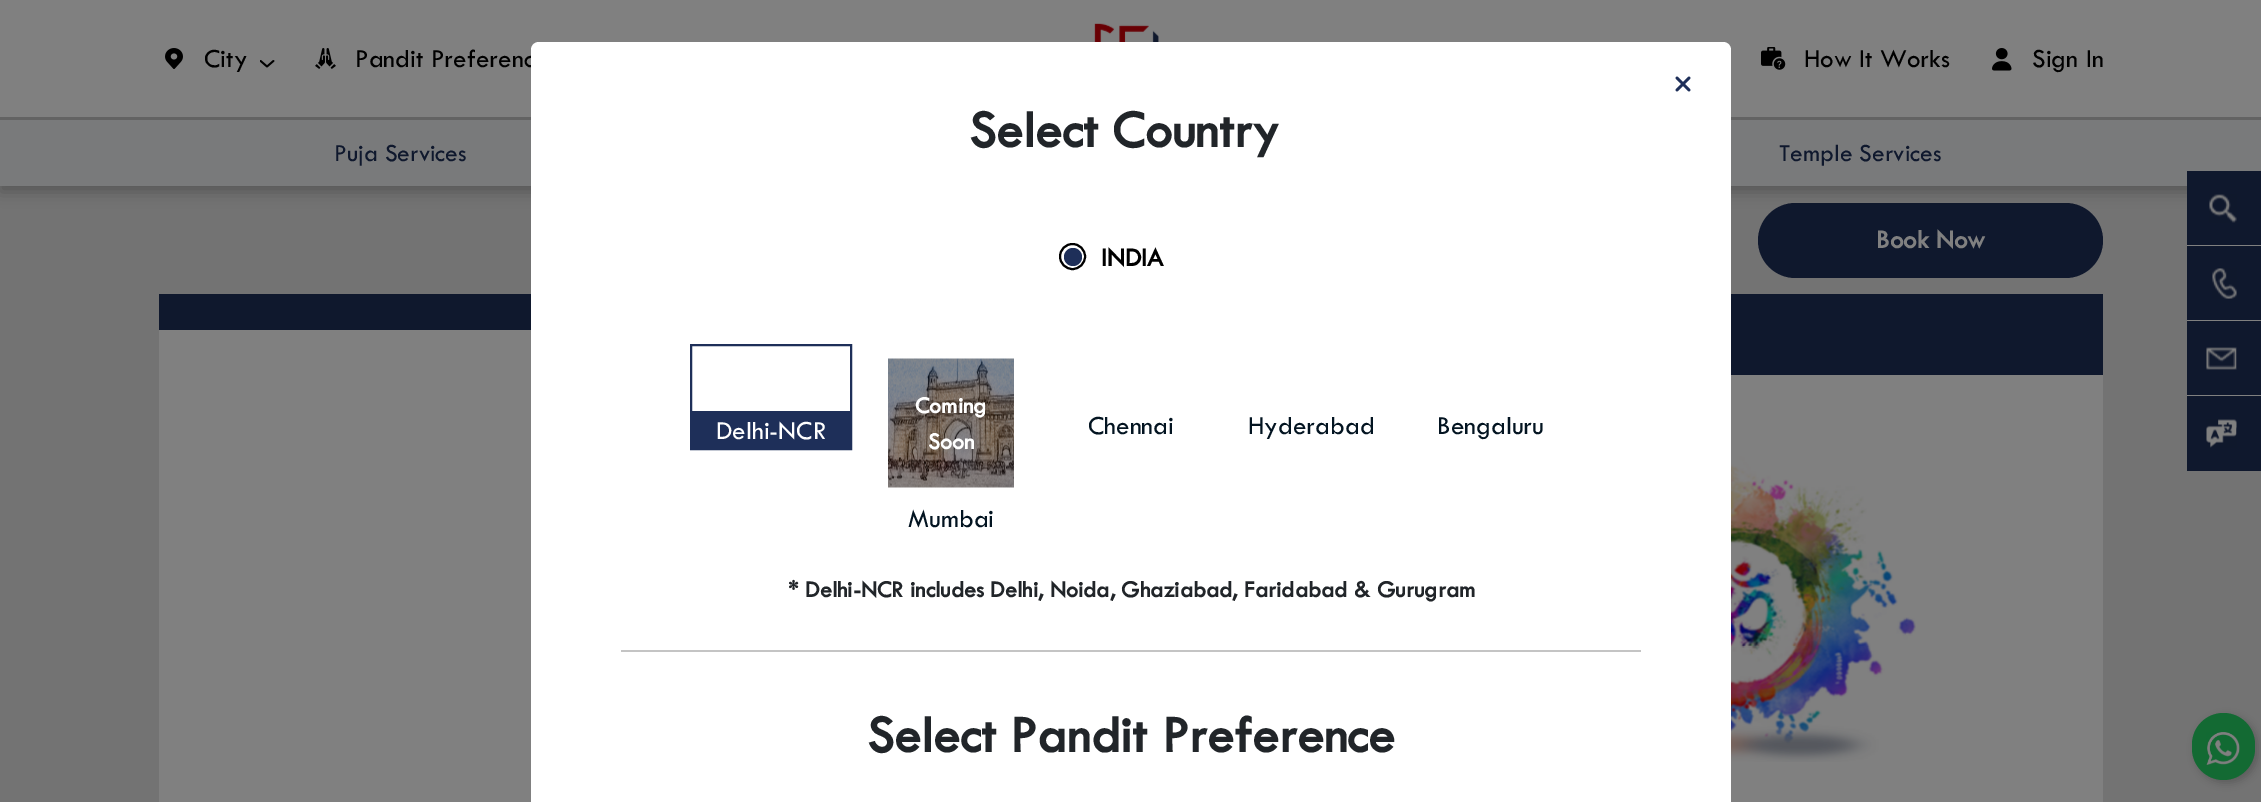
%!PS-Adobe-3.0
%%BoundingBox: 0 0 2261 802
%%LanguageLevel: 3
%%Pages: 1
%%EndComments
%%BeginProlog
/setink { 3 { 255 div 3 1 roll } repeat setrgbcolor } def
/usefont { [ exch dup neg 0 0 3 -1 roll 0 0 ] selectfont } def
/drawtext { setink usefont moveto show } def
/fillbox { setink rectfill } def
/setalpha { dup .setfillconstantalpha .setstrokeconstantalpha } def
/disc { newpath 0 360 arc closepath } def
/rrect { 5 dict begin { /r /h /w /y /x } { exch def } forall
  x r add y moveto x w add y 2 copy h add r arct x w add y h add x 1 index r arct
  x y h add x y r arct x y 2 copy exch w add exch r arct closepath end } def
/softshadow { 12 dict begin { /a /b /q /h /w /y /x } { exch def } forall gsave /was 0 def
  9 -2 -9 { dup b mul 4 div /e exch def 1 sub .425 mul 2.718 exch exp 1 add a .99 .min exch div /now exch def
    1 1 now sub 1 was sub div sub setalpha /was now def
    w h .min e 2 mul add 0 gt { x e sub y e sub w e 2 mul add h e 2 mul add
      q e add b .6 mul add w h .min 2 div e add .min 0 .max rrect fill } if } for grestore end } def
/drawimage { 5 dict begin { /h /w /y /x /name } { exch def } forall
  gsave x y translate w h scale
  w h 8 [w 0 0 h 0 0] name (r) file false 3 colorimage grestore end } def
%%EndProlog
%%BeginSetup
<< /PageSize [2261 802] /PageUsesTransparency true >> setpagedevice
%%EndSetup
%%Page: 1 1
0 .pushpdf14devicefilter
0 802 translate 1 -1 scale
4 setmiterlimit
0 0 2261 802 115 115 115 fillbox
15 24 45 setink
1758 203 345 75 37.5 rrect fill
0 0 0 setink
0 126 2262 66 0 7.5 0.25 softshadow
0 0 2261 117 128 128 128 fillbox
0 117 2261 3 99 99 99 fillbox
(assets/img1.rgb) 1094 23 65 19 drawimage
(assets/img2.rgb) 165 48 18 21 drawimage
(City) 204 67 /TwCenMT-Regular 27 0 0 0 drawtext
(assets/img3.rgb) 260 60 15 8 drawimage
(assets/img4.rgb) 315 48 21 21 drawimage
(Pandit Preferenc) 355 67 /TwCenMT-Regular 27 0 0 0 drawtext
(assets/img5.rgb) 1761 47 25 23 drawimage
(How It Works) 1804 67 /TwCenMT-Regular 27 0 0 0 drawtext
(assets/img6.rgb) 1992 48 20 23 drawimage
(Sign In) 2032 67 /TwCenMT-Regular 27 0 0 0 drawtext
0 120 2261 66 121 122 123 fillbox
(Puja Services) 334 161 /TwCenMT-Regular 25.5 15 24 45 drawtext
(Temple Services) 1779 161 /TwCenMT-Regular 25.5 15 24 45 drawtext
(Book Now) 1876 248 /TwCenMT-Bold 27 128 128 128 drawtext
159 330 372 472 128 128 128 fillbox
159 294 372 36 15 24 45 fillbox
1731 375 372 427 128 128 128 fillbox
1731 294 372 81 15 24 45 fillbox
(assets/img7.rgb) 1731 431 185 331 drawimage
2187 171 74 74 15 24 45 fillbox
2187 245 74 1 128 128 128 fillbox
(assets/img8.rgb) 2209 194 28 29 drawimage
2187 246 74 74 15 24 45 fillbox
2187 320 74 1 128 128 128 fillbox
(assets/img9.rgb) 2212 268 25 31 drawimage
2187 321 74 74 15 24 45 fillbox
2187 395 74 1 128 128 128 fillbox
(assets/img10.rgb) 2206 347 31 23 drawimage
(assets/img11.rgb) 2236 348 1 21 drawimage
2187 396 74 75 15 24 45 fillbox
(assets/img12.rgb) 2206 419 31 29 drawimage
(assets/img13.rgb) 2236 427 1 9 drawimage
0 0 0 setink
2195 716 63 67 31.5 4 0.2 softshadow
19 106 51 setink
2192 713 63 67 31.5 rrect fill
(assets/img14.rgb) 2206 732 34 33 drawimage
255 255 255 setink
539 42 moveto 1723 42 lineto 1727.5 42 1731 45.5 1731 50 curveto 1731 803 lineto 531 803 lineto 531 50 lineto 531 45.5 534.5 42 539 42 curveto closepath fill
621 650 1020 2 196 196 196 fillbox
(assets/img15.rgb) 1675 76 16 16 drawimage
(Select Country) 969 147 /TwCenMT-Bold 54 33 37 41 drawtext
0 0 0 setink
2 setlinewidth
1072.5 256.5 12.5 disc stroke
30 47 89 setink
1073 257 9 disc fill
(INDIA) 1101 266 /TwCenMT-Bold 27 0 0 0 drawtext
30 47 89 setink
691 345 160 104 rectstroke
692 411 158 37 30 47 89 fillbox
(Delhi-NCR) 716 439 /TwCenMT-Regular 27 255 255 255 drawtext
(assets/img16.rgb) 888 358 126 130 drawimage
(Coming) 915 413 /TwCenMT-Bold 24 255 255 255 drawtext
(Soon) 928 449 /TwCenMT-Bold 24 255 255 255 drawtext
(Mumbai) 908 527 /TwCenMT-Regular 27 3 20 33 drawtext
(Chennai) 1088 434 /TwCenMT-Regular 27 3 20 33 drawtext
(Hyderabad) 1248 434 /TwCenMT-Regular 27 3 20 33 drawtext
(Bengaluru) 1437 434 /TwCenMT-Regular 27 3 20 33 drawtext
(* Delhi-NCR includes Delhi, Noida, Ghaziabad, Faridabad & Gurugram) 788 597 /TwCenMT-Bold 24 33 37 41 drawtext
(Select Pandit Preference) 867 752 /TwCenMT-Bold 54 33 37 41 drawtext
.poppdf14devicefilter showpage
%%EOF
